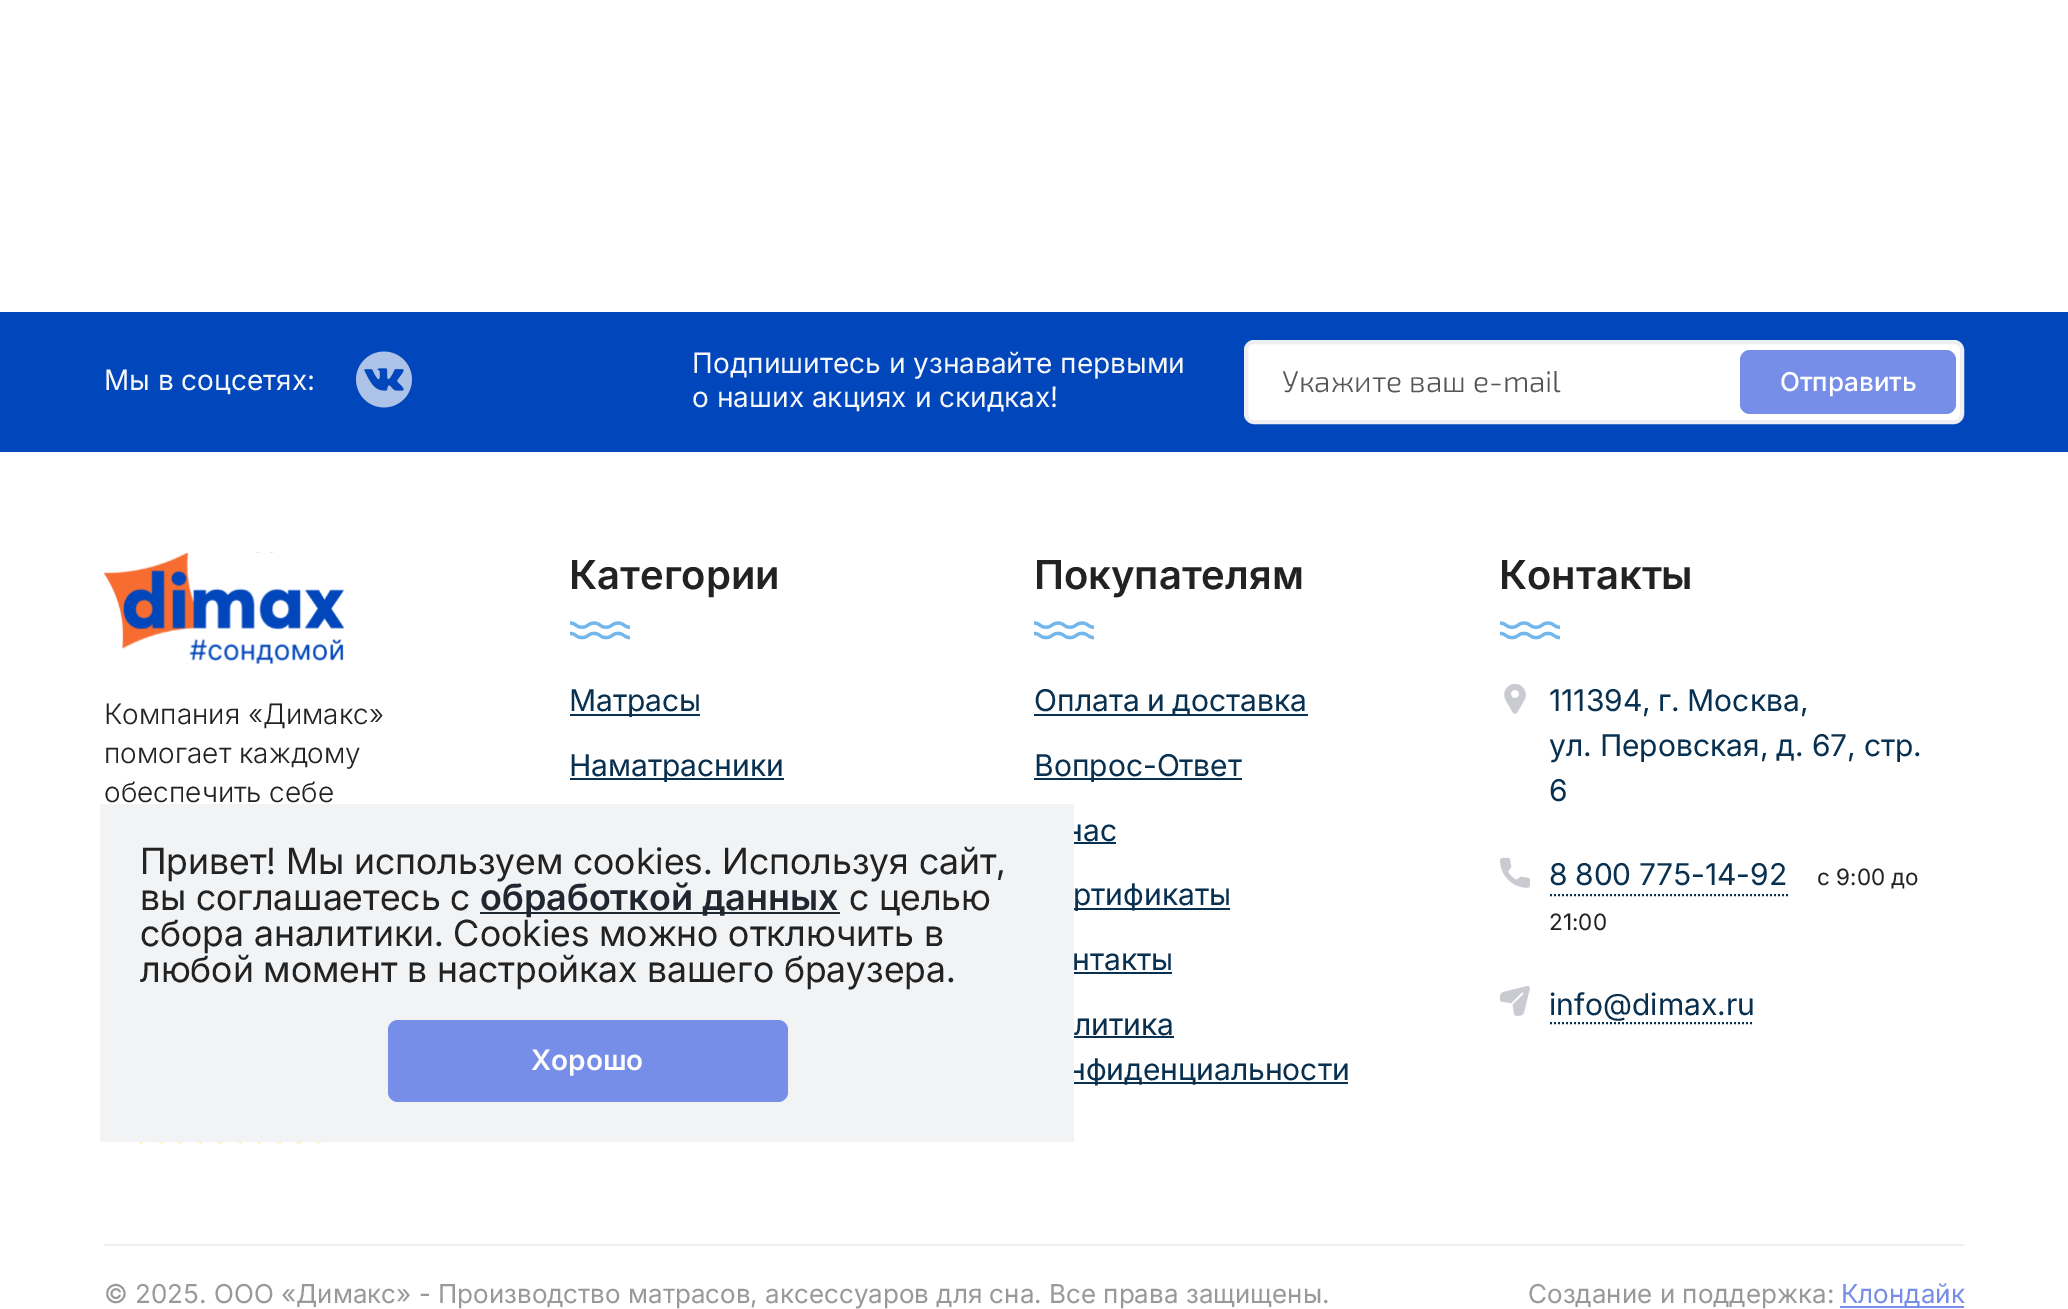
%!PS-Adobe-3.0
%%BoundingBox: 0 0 2068 1309
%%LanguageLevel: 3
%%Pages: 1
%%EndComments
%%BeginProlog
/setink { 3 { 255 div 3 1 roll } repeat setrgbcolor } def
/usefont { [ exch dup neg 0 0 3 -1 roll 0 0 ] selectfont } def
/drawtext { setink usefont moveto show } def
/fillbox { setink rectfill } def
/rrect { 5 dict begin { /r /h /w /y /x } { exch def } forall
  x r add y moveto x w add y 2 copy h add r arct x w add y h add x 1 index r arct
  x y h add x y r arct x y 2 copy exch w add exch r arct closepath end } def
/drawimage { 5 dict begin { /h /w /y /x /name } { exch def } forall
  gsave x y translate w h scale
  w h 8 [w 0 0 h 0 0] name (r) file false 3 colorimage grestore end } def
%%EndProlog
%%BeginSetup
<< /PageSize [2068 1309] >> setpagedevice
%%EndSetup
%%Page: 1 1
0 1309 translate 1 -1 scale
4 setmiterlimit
0 0 2068 1309 255 255 255 fillbox
0 312 2068 140 1 70 186 fillbox
(Мы в соцсетях:) 104 390 /Inter-Regular 28 247 248 250 drawtext
(assets/img1.rgb) 356 351 56 57 drawimage
(Подпишитесь и узнавайте первыми) 692 373 /Inter-Regular 28 247 248 250 drawtext
(о наших акциях и скидках!) 692 407 /Inter-Regular 28 247 248 250 drawtext
255 255 255 setink
1246 342 716 80 8 rrect gsave fill grestore
238 239 242 setink
4 setlinewidth
stroke
(Укажите ваш e-mail) 1282 392 /Exo2-Light 30 85 85 85 drawtext
118 142 232 setink
1740 350 216 64 10 rrect fill
(Отправить) 1780 391 /Inter-Medium 26 255 255 255 drawtext
(assets/img2.rgb) 104 552 240 112 drawimage
(Компания «Димакс») 104 724 /Inter-Light 28 34 34 34 drawtext
(помогает каждому) 104 763 /Inter-Light 28 34 34 34 drawtext
(обеспечить себе) 104 802 /Inter-Light 28 34 34 34 drawtext
(assets/img3.rgb) 104 1142 254 2 drawimage
(Категории) 569 589 /Inter-SemiBold 40 34 34 34 drawtext
(assets/img4.rgb) 570 621 60 19 drawimage
570 714 130 2 8 48 80 fillbox
(Матрасы) 569 711 /Inter-Regular 30 8 48 80 drawtext
570 778 214 2 8 48 80 fillbox
(Наматрасники) 569 776 /Inter-Regular 30 8 48 80 drawtext
(Покупателям) 1034 589 /Inter-SemiBold 40 34 34 34 drawtext
(assets/img4.rgb) 1034 621 60 19 drawimage
1034 714 274 2 8 48 80 fillbox
/Inter-Regular 30 usefont
1034 711 moveto -1 0 32 (Оплата и доставка) widthshow
1034 778 208 2 8 48 80 fillbox
(Вопрос-Ответ) 1034 776 /Inter-Regular 30 8 48 80 drawtext
(нас) 1065 841 /Inter-Regular 30 8 48 80 drawtext
1074 842 42 2 8 48 80 fillbox
1074 908 156 2 8 48 80 fillbox
(ртификаты) 1073 905 /Inter-Regular 30 8 48 80 drawtext
(нтакты) 1072 970 /Inter-Regular 30 8 48 80 drawtext
1074 972 98 2 8 48 80 fillbox
(литика) 1074 1035 /Inter-Regular 30 8 48 80 drawtext
1074 1036 100 2 8 48 80 fillbox
1074 1082 274 2 8 48 80 fillbox
(нфиденциальности) 1068 1080 /Inter-Regular 30 8 48 80 drawtext
(Контакты) 1499 589 /Inter-SemiBold 40 34 34 34 drawtext
(assets/img4.rgb) 1500 621 60 19 drawimage
(assets/img5.rgb) 1504 683 22 31 drawimage
/Inter-Regular 30 usefont
8 48 80 setink
1549 711 moveto -1 0 32 (111394, г. Москва,) widthshow
1549 756 moveto -0.5 0 32 (ул. Перовская, д. 67, стр.) widthshow
(6) 1549 801 /Inter-Regular 30 8 48 80 drawtext
(assets/img6.rgb) 1500 857 30 31 drawimage
1549 885 moveto -1 0 32 (8 800 775-14-92) widthshow
2 setlinewidth
[2 2] 0 setdash
1550 895 moveto 1788 895 lineto stroke
(с 9:00 до) 1817 885 /Inter-Regular 22.5 34 34 34 drawtext
(21:00) 1549 930 /Inter-Regular 22.5 34 34 34 drawtext
(assets/img7.rgb) 1500 986 30 30 drawimage
(info@dimax.ru) 1549 1015 /Inter-Regular 30 8 48 80 drawtext
1550 1023 moveto 1754 1023 lineto stroke
104 1244 1860 2 238 239 242 fillbox
(© 2025. ООО «Димакс» - Производство матрасов, аксессуаров для сна. Все права защищены.) 104 1303 /Inter-Regular 26 153 153 153 drawtext
(Создание и поддержка:) 1528 1303 /Inter-Regular 26 153 153 153 drawtext
1840 1306 124 2 118 142 232 fillbox
(Клондайк) 1841 1303 /Inter-Regular 26 118 142 232 drawtext
100 804 974 338 241 243 245 fillbox
(Привет! Мы используем cookies. Используя сайт,) 140 874 /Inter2-Regular 36 34 34 34 drawtext
(вы соглашаетесь с) 140 910 /Inter2-Regular 36 34 34 34 drawtext
480 912 360 2 33 39 48 fillbox
(обработкой данных) 480 910 /Inter-SemiBold 36 33 39 48 drawtext
(с целью) 849 910 /Inter2-Regular 36 34 34 34 drawtext
(сбора аналитики. Cookies можно отключить в) 140 946 /Inter2-Regular 36 34 34 34 drawtext
(любой момент в настройках вашего браузера.) 140 982 /Inter2-Regular 36 34 34 34 drawtext
118 142 232 setink
388 1020 400 82 10 rrect fill
(Хорошо) 531 1070 /Inter-SemiBold 28 255 255 255 drawtext
showpage
%%EOF
